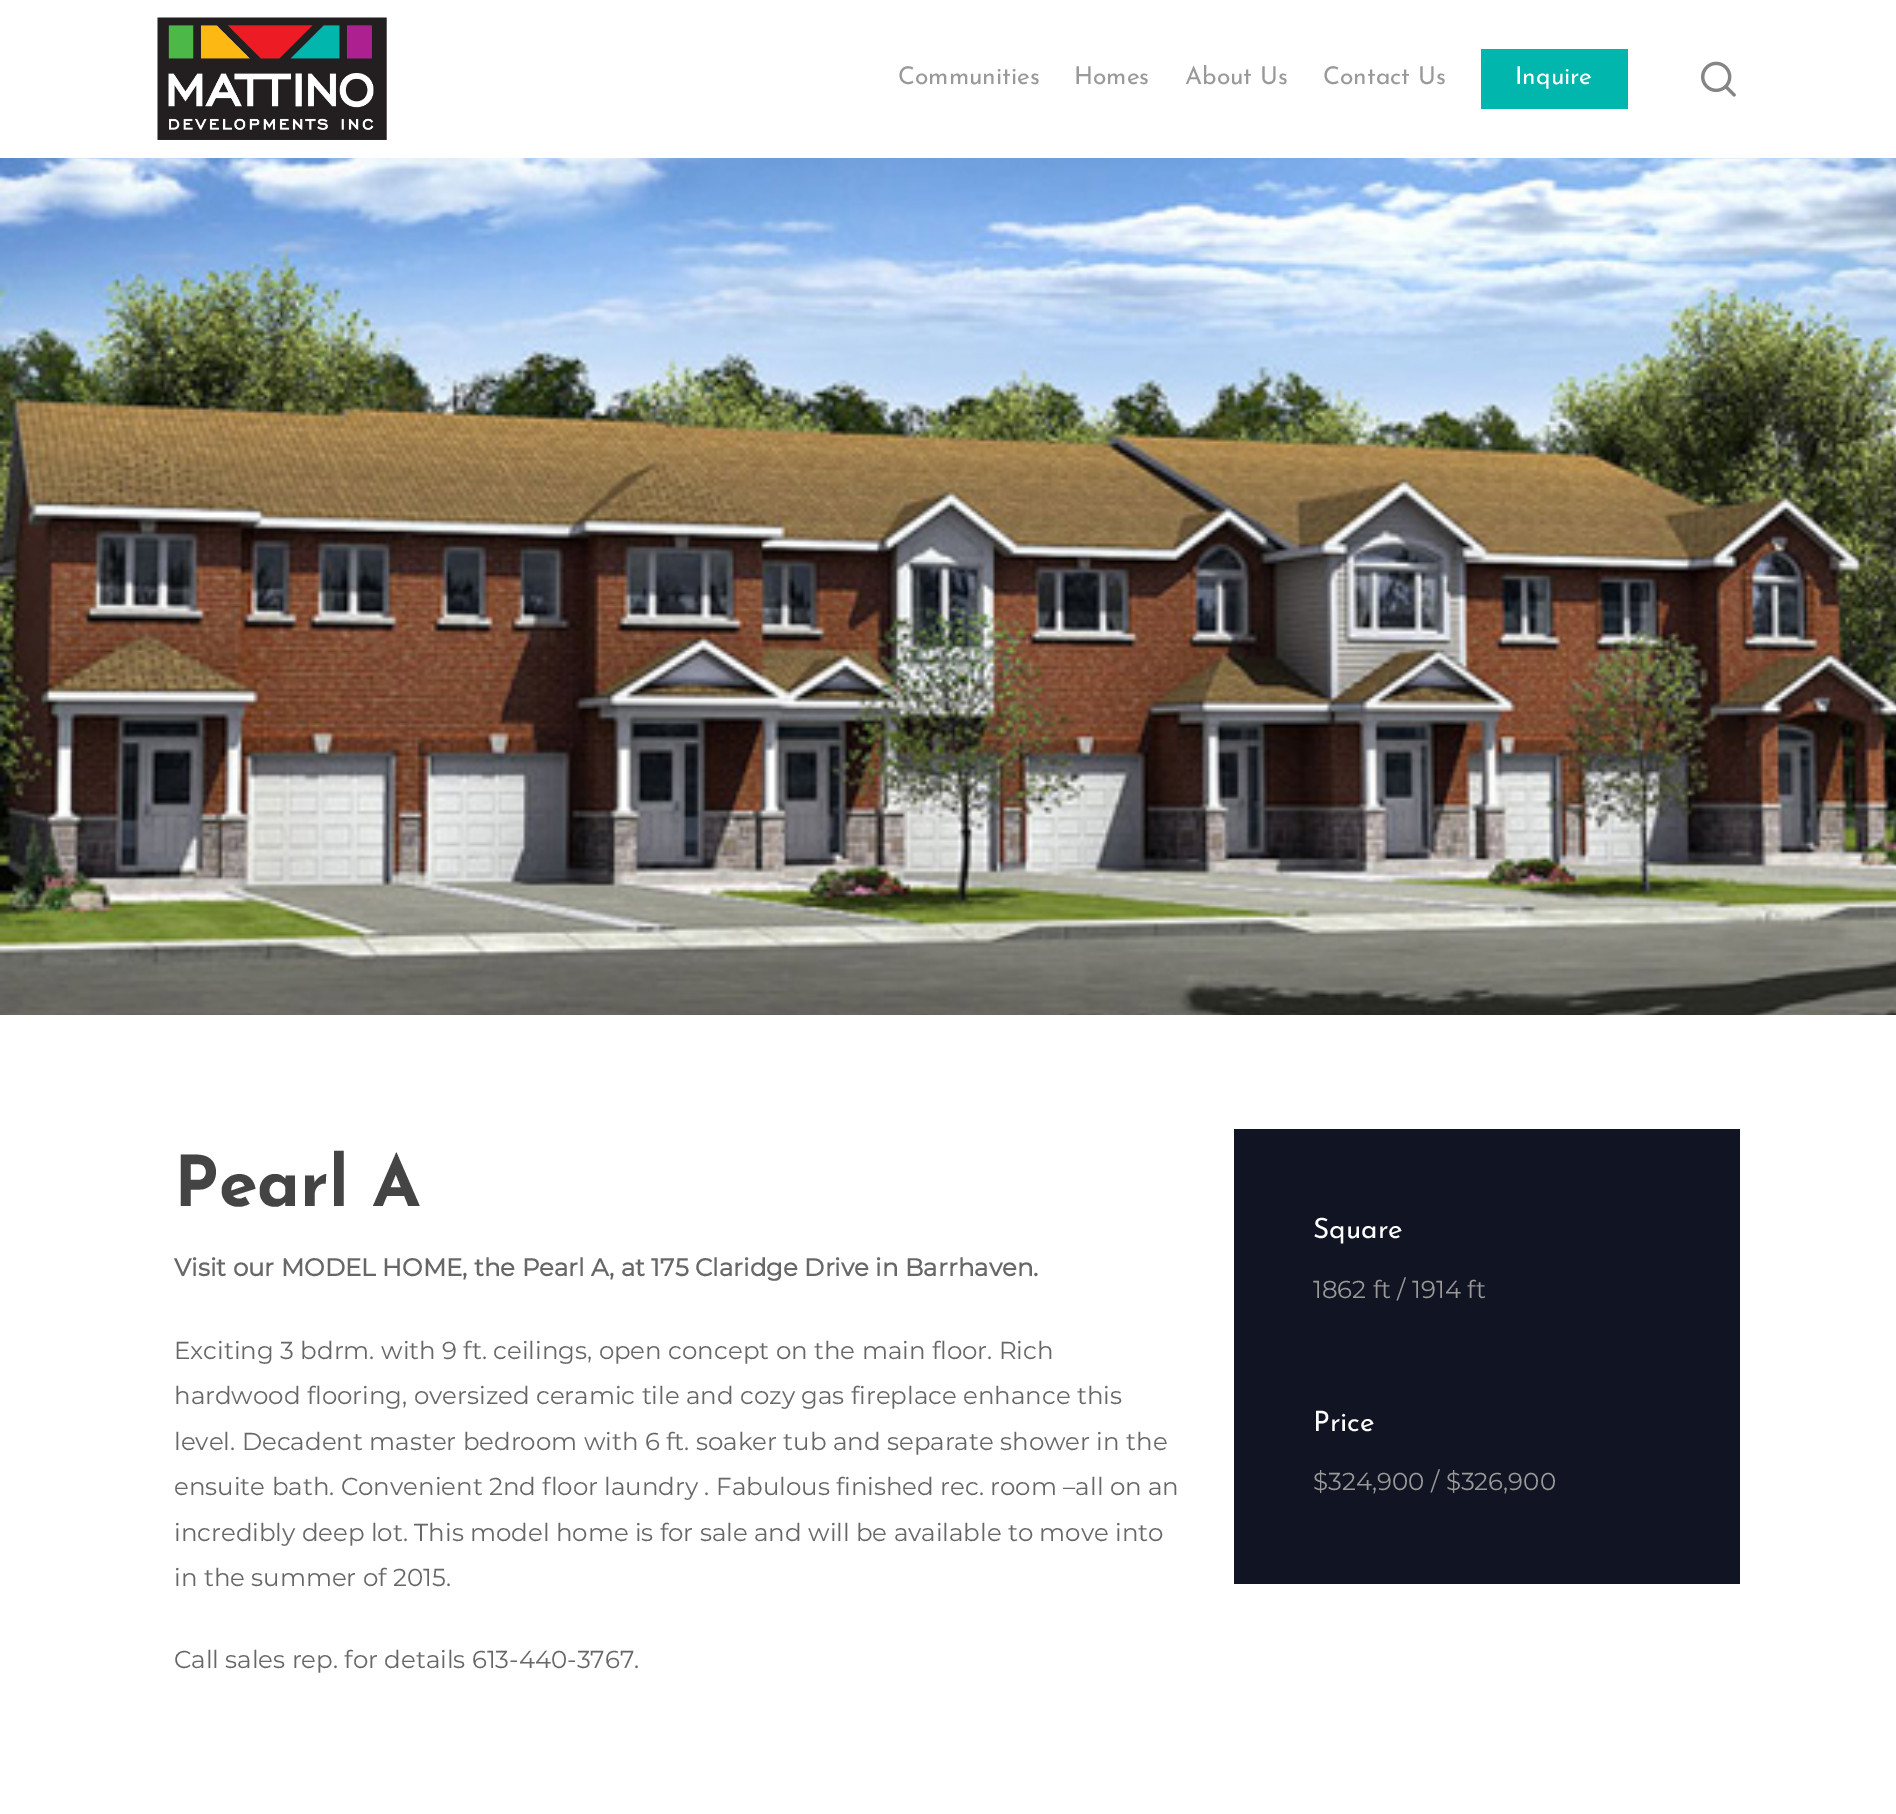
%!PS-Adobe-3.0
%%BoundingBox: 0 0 1896 1814
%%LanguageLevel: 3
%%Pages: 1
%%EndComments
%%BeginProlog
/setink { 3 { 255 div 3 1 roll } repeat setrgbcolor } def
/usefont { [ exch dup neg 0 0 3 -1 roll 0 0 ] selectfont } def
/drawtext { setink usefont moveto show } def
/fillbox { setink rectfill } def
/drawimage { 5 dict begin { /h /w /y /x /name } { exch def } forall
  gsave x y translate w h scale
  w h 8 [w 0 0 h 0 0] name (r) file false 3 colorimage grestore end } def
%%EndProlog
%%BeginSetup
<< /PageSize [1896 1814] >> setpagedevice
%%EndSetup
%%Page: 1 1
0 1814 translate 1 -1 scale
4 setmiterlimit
0 0 1896 1814 255 255 255 fillbox
(assets/img1.rgb) 157 17 230 123 drawimage
(Communities) 898 84 /JosefinSans-Regular 24.5 153 153 153 drawtext
(Homes) 1074 84 /JosefinSans-Regular 24.5 153 153 153 drawtext
(About Us) 1185 84 /JosefinSans-Regular 24.5 153 153 153 drawtext
(Contact Us) 1323 84 /JosefinSans-Regular 24.5 153 153 153 drawtext
1481 49 147 60 1 182 173 fillbox
(Inquire) 1515 84 /JosefinSans-Regular 24.5 255 255 255 drawtext
(assets/img2.rgb) 1701 61 35 36 drawimage
(assets/img3.rgb) 0 158 1896 857 drawimage
(Pearl A) 174 1206 /JosefinSans-Bold 70 68 68 68 drawtext
(Visit our MODEL HOME, the Pearl A, at 175 Claridge Drive in Barrhaven.) 174 1276 /Montserrat-Bold 24.5 103 103 103 drawtext
(Exciting 3 bdrm. with 9 ft. ceilings, open concept on the main floor. Rich) 174 1359 /Montserrat-Thin 24.5 103 103 103 drawtext
(hardwood flooring, oversized ceramic tile and cozy gas fireplace enhance this) 174 1404 /Montserrat-Thin 24.5 103 103 103 drawtext
(level. Decadent master bedroom with 6 ft. soaker tub and separate shower in the) 174 1450 /Montserrat-Thin 24.5 103 103 103 drawtext
(ensuite bath. Convenient 2nd floor laundry . Fabulous finished rec. room –all on an) 174 1495 /Montserrat-Thin 24.5 103 103 103 drawtext
(incredibly deep lot. This model home is for sale and will be available to move into) 174 1541 /Montserrat-Thin 24.5 103 103 103 drawtext
(in the summer of 2015.) 174 1586 /Montserrat-Thin 24.5 103 103 103 drawtext
(Call sales rep. for details 613-440-3767.) 174 1668 /Montserrat-Thin 24.5 103 103 103 drawtext
1234 1129 506 455 17 20 34 fillbox
(Square) 1313 1238 /JosefinSans-Regular 28 255 255 255 drawtext
(1862 ft / 1914 ft) 1313 1298 /Montserrat-Thin 24.5 153 153 153 drawtext
(Price) 1313 1431 /JosefinSans-Regular 28 255 255 255 drawtext
($324,900 / $326,900) 1313 1490 /Montserrat-Thin 24.5 153 153 153 drawtext
showpage
%%EOF
